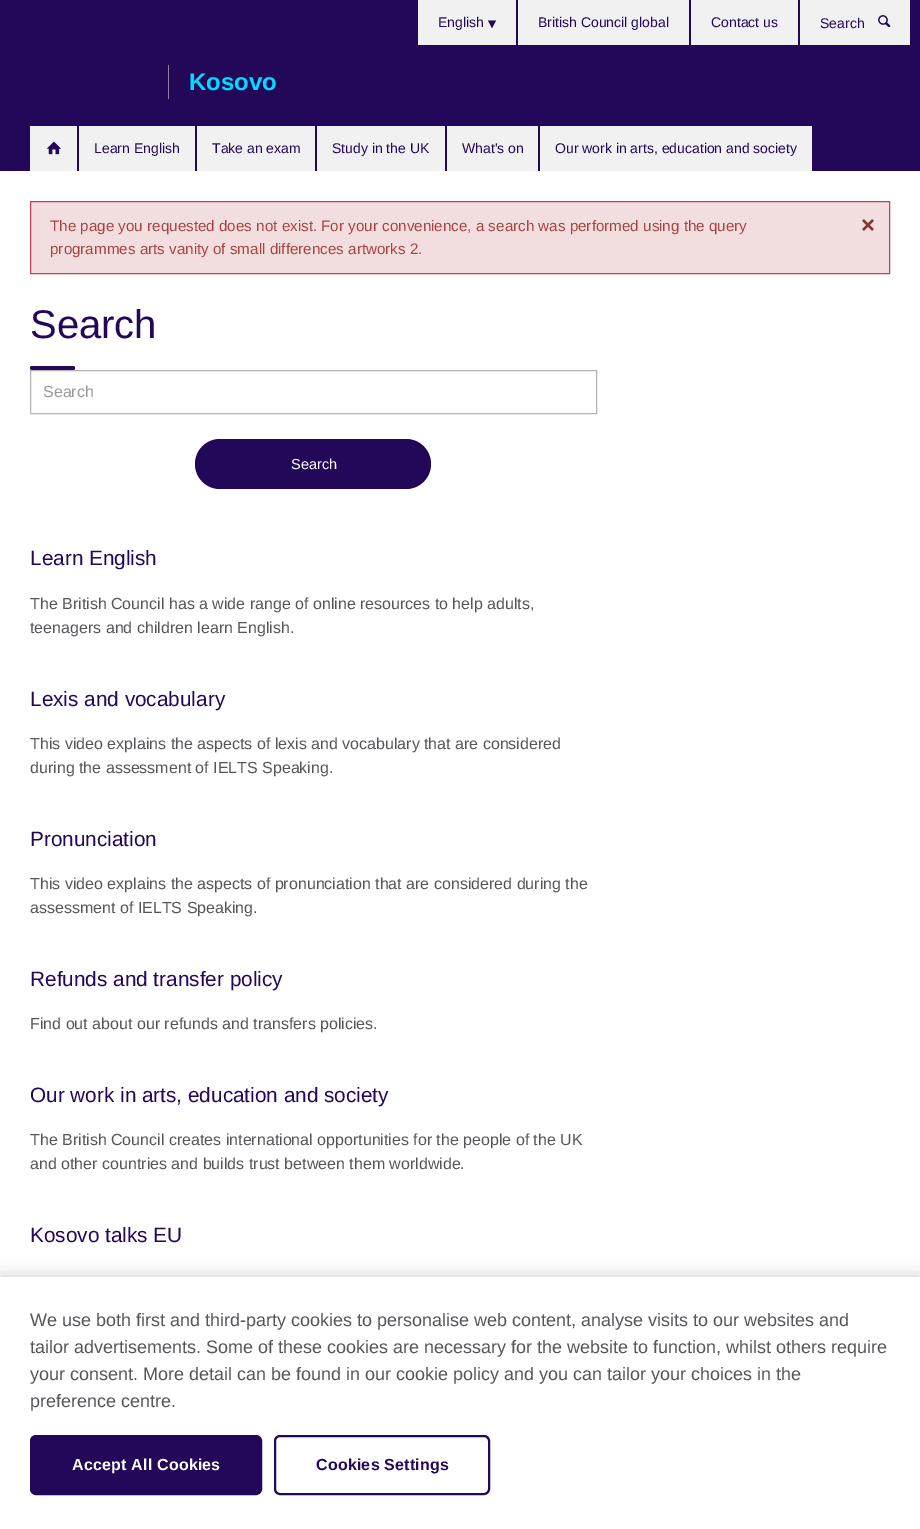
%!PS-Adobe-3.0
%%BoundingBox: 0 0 920 1529
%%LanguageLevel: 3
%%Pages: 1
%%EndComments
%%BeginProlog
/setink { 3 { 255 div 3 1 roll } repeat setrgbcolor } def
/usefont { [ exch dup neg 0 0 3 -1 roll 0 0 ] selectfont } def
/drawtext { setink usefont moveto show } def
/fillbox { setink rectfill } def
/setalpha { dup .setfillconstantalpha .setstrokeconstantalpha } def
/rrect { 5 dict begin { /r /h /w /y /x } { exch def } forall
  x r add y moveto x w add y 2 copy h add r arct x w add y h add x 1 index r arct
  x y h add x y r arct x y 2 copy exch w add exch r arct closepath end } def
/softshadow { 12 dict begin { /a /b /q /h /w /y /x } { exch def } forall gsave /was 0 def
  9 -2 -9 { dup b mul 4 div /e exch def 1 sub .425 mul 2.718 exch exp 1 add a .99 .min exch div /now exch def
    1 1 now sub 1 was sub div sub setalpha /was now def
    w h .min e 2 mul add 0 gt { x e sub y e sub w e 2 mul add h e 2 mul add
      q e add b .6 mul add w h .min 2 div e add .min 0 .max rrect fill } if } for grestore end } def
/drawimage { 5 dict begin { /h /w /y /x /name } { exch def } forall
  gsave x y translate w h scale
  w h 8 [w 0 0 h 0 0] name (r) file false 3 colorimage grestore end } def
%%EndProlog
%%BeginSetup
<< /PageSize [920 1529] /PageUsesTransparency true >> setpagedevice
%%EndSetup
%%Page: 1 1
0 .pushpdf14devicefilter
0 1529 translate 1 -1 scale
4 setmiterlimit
0 0 920 1529 255 255 255 fillbox
0 0 920 171 35 8 90 fillbox
418 0 98 45 241 241 241 fillbox
(English) 438 27 /LiberationSans-Regular 14 35 8 90 drawtext
496 20.5 moveto 488 20.5 lineto 492 28 lineto 496 20.5 lineto eofill
518 0 171 45 241 241 241 fillbox
(British Council global) 538 27 /LiberationSans-Regular 14 35 8 90 drawtext
691 0 107 45 241 241 241 fillbox
(Contact us) 711 27 /LiberationSans-Regular 14 35 8 90 drawtext
800 0 110 45 241 241 241 fillbox
(Search) 820 28 /LiberationSans-Regular 14 35 8 90 drawtext
(assets/img1.rgb) 878 15 13 12 drawimage
30 126 47 45 241 241 241 fillbox
(assets/img2.rgb) 47 141 14 14 drawimage
79 126 116 45 241 241 241 fillbox
(Learn English) 94 153 /LiberationSans-Regular 14 35 8 90 drawtext
197 126 118 45 241 241 241 fillbox
(Take an exam) 212 153 /LiberationSans-Regular 14 35 8 90 drawtext
317 126 128 45 241 241 241 fillbox
(Study in the UK) 332 153 /LiberationSans-Regular 14 35 8 90 drawtext
447 126 91 45 241 241 241 fillbox
(What's on) 462 153 /LiberationSans-Regular 14 35 8 90 drawtext
540 126 272 45 241 241 241 fillbox
(Our work in arts, education and society) 555 153 /LiberationSans-Regular 14 35 8 90 drawtext
168 65 1 34 138 125 166 fillbox
(Kosovo) 189 90 /LiberationSans-Bold 24 0 220 255 drawtext
242 222 222 setink
30.5 201.5 moveto 889.5 201.5 lineto 889.5 273.5 lineto 30.5 273.5 lineto closepath gsave fill grestore
199 65 86 setink
stroke
(The page you requested does not exist. For your convenience, a search was performed using the query) 50 231 /LiberationSans-Regular 15.2 169 68 66 drawtext
(×) 861 233 /LiberationSans-Bold 24 132 53 52 drawtext
(programmes arts vanity of small differences artworks 2.) 50 254 /LiberationSans-Regular 15.2 169 68 66 drawtext
(Search) 30 338 /LiberationSans-Regular 40 35 8 90 drawtext
30 366 45 4 2 rrect fill
179 179 179 setink
30.5 370.5 566 43 rectstroke
(Search) 43 397 /LiberationSans-Regular 16 153 153 153 drawtext
35 8 90 setink
195 439 236 50 25 rrect fill
(Search) 291 469 /LiberationSans-Regular 14.5 255 255 255 drawtext
(Learn English) 30 565 /LiberationSans-Regular 20.75 35 8 90 drawtext
(The British Council has a wide range of online resources to help adults,) 30 609 /LiberationSans-Regular 16 84 86 90 drawtext
(teenagers and children learn English.) 30 633 /LiberationSans-Regular 16 84 86 90 drawtext
(Lexis and vocabulary) 30 706 /LiberationSans-Regular 20.75 35 8 90 drawtext
(This video explains the aspects of lexis and vocabulary that are considered) 30 749 /LiberationSans-Regular 16 84 86 90 drawtext
(during the assessment of IELTS Speaking.) 30 773 /LiberationSans-Regular 16 84 86 90 drawtext
(Pronunciation) 30 846 /LiberationSans-Regular 20.75 35 8 90 drawtext
(This video explains the aspects of pronunciation that are considered during the) 30 889 /LiberationSans-Regular 16 84 86 90 drawtext
(assessment of IELTS Speaking.) 30 913 /LiberationSans-Regular 16 84 86 90 drawtext
(Refunds and transfer policy) 30 986 /LiberationSans-Regular 20.75 35 8 90 drawtext
(Find out about our refunds and transfers policies.) 30 1029 /LiberationSans-Regular 16 84 86 90 drawtext
(Our work in arts, education and society) 30 1102 /LiberationSans-Regular 20.75 35 8 90 drawtext
(The British Council creates international opportunities for the people of the UK) 30 1145 /LiberationSans-Regular 16 84 86 90 drawtext
(and other countries and builds trust between them worldwide.) 30 1169 /LiberationSans-Regular 16 84 86 90 drawtext
(Kosovo talks EU) 30 1242 /LiberationSans-Regular 20.75 35 8 90 drawtext
0 0 0 setink
0 1277 920 252 0 9 0.2 softshadow
0 1277 920 252 255 255 255 fillbox
(We use both first and third-party cookies to personalise web content, analyse visits to our websites and) 30 1326 /LiberationSans-Regular 18 84 86 90 drawtext
(tailor advertisements. Some of these cookies are necessary for the website to function, whilst others require) 30 1353 /LiberationSans-Regular 18 84 86 90 drawtext
(your consent. More detail can be found in our cookie policy and you can tailor your choices in the) 30 1380 /LiberationSans-Regular 18 84 86 90 drawtext
(preference centre.) 30 1407 /LiberationSans-Regular 18 84 86 90 drawtext
35 8 90 setink
31 1436 230 58 5 rrect gsave fill grestore
2 setlinewidth
stroke
/LiberationSans-Bold 16 usefont
255 255 255 setink
72 1470 moveto 0.2 0 (Accept All Cookies) ashow
35 8 90 setink
275 1436 214 58 5 rrect stroke
316 1470 moveto 0.2 0 (Cookies Settings) ashow
.poppdf14devicefilter showpage
%%EOF
